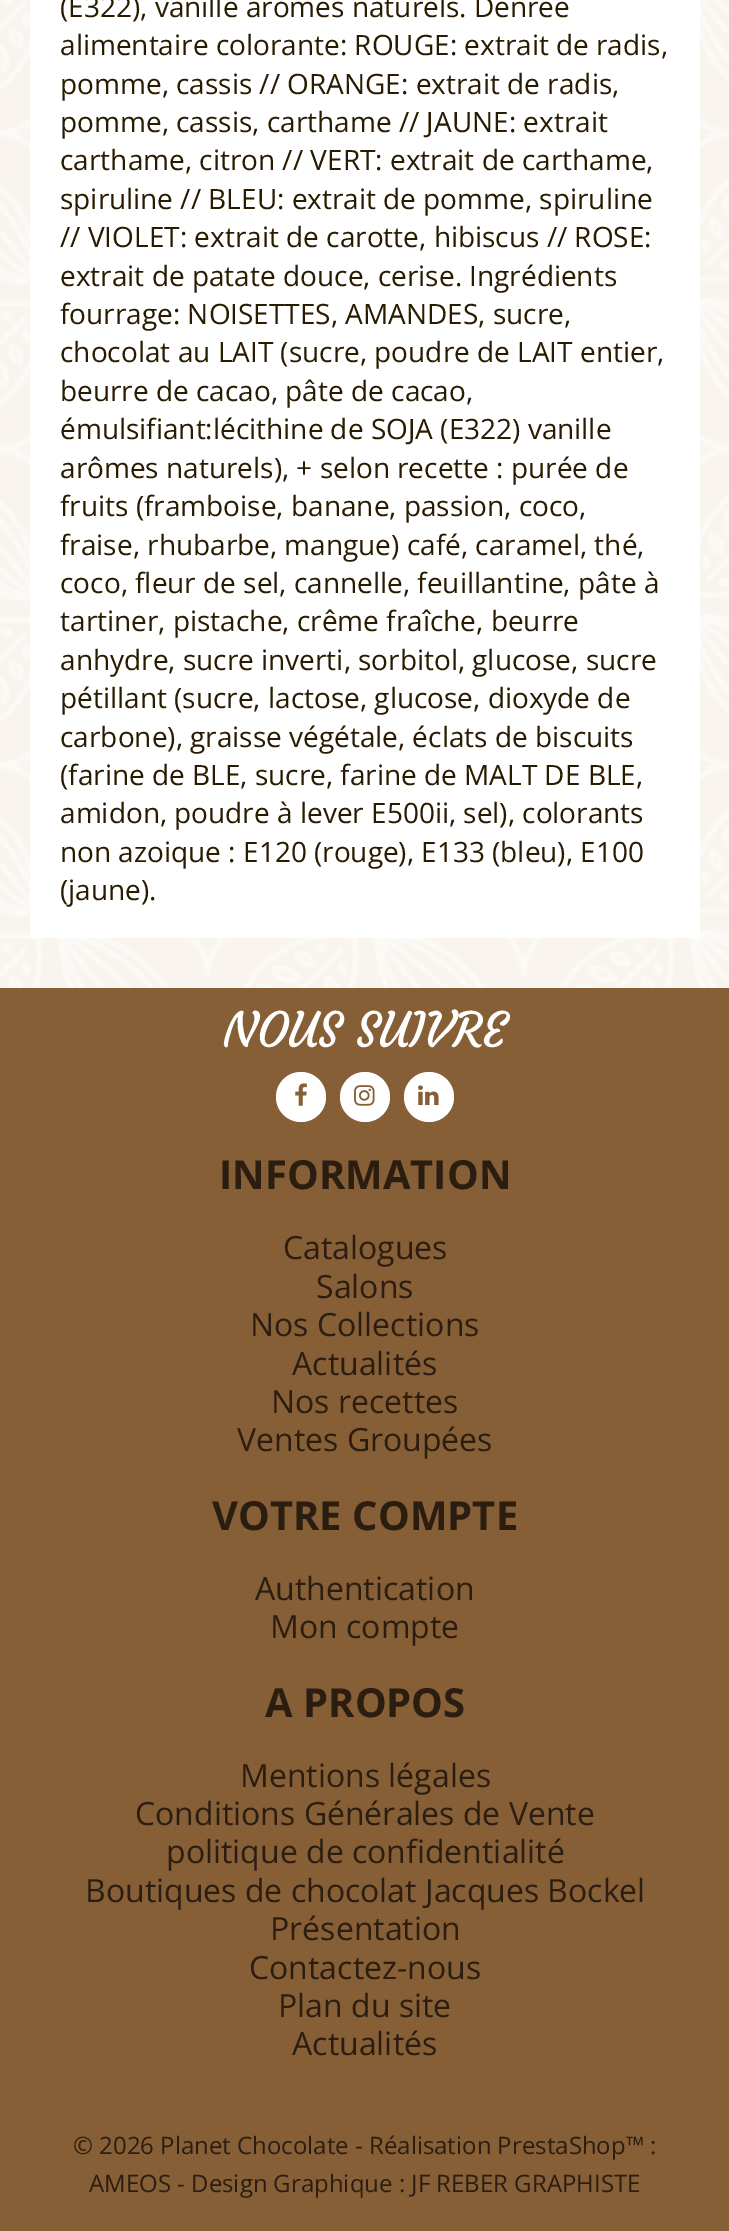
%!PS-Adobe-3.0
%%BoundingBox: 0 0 729 2231
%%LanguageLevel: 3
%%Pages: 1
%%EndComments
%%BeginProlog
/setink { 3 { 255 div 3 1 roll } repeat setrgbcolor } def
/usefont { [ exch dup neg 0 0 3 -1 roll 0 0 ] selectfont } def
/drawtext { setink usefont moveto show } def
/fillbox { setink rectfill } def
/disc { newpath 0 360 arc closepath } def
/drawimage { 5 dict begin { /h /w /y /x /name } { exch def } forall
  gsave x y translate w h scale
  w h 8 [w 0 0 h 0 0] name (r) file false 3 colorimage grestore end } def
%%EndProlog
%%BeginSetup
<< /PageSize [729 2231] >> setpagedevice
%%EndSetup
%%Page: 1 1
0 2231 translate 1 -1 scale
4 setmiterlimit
0 0 729 2231 255 255 255 fillbox
(assets/img1.rgb) 0 0 729 988 drawimage
30 0 670 938 255 255 255 fillbox
(\(E322\), vanille arômes naturels. Denrée) 60 17 /OpenSans-Regular 28 40 27 0 drawtext
(alimentaire colorante: ROUGE: extrait de radis,) 60 55 /OpenSans-Regular 28 40 27 0 drawtext
(pomme, cassis // ORANGE: extrait de radis,) 60 94 /OpenSans-Regular 28 40 27 0 drawtext
(pomme, cassis, carthame // JAUNE: extrait) 60 132 /OpenSans-Regular 28 40 27 0 drawtext
(carthame, citron // VERT: extrait de carthame,) 60 170 /OpenSans-Regular 28 40 27 0 drawtext
(spiruline // BLEU: extrait de pomme, spiruline) 60 209 /OpenSans-Regular 28 40 27 0 drawtext
(// VIOLET: extrait de carotte, hibiscus // ROSE:) 60 247 /OpenSans-Regular 28 40 27 0 drawtext
(extrait de patate douce, cerise. Ingrédients) 60 286 /OpenSans-Regular 28 40 27 0 drawtext
(fourrage: NOISETTES, AMANDES, sucre,) 60 324 /OpenSans-Regular 28 40 27 0 drawtext
(chocolat au LAIT \(sucre, poudre de LAIT entier,) 60 362 /OpenSans-Regular 28 40 27 0 drawtext
(beurre de cacao, pâte de cacao,) 60 401 /OpenSans-Regular 28 40 27 0 drawtext
(émulsifiant:lécithine de SOJA \(E322\) vanille) 60 439 /OpenSans-Regular 28 40 27 0 drawtext
(arômes naturels\), + selon recette : purée de) 60 478 /OpenSans-Regular 28 40 27 0 drawtext
(fruits \(framboise, banane, passion, coco,) 60 516 /OpenSans-Regular 28 40 27 0 drawtext
(fraise, rhubarbe, mangue\) café, caramel, thé,) 60 555 /OpenSans-Regular 28 40 27 0 drawtext
(coco, fleur de sel, cannelle, feuillantine, pâte à) 60 593 /OpenSans-Regular 28 40 27 0 drawtext
(tartiner, pistache, crême fraîche, beurre) 60 631 /OpenSans-Regular 28 40 27 0 drawtext
(anhydre, sucre inverti, sorbitol, glucose, sucre) 60 670 /OpenSans-Regular 28 40 27 0 drawtext
(pétillant \(sucre, lactose, glucose, dioxyde de) 60 708 /OpenSans-Regular 28 40 27 0 drawtext
(carbone\), graisse végétale, éclats de biscuits) 60 747 /OpenSans-Regular 28 40 27 0 drawtext
(\(farine de BLE, sucre, farine de MALT DE BLE,) 60 785 /OpenSans-Regular 28 40 27 0 drawtext
(amidon, poudre à lever E500ii, sel\), colorants) 60 823 /OpenSans-Regular 28 40 27 0 drawtext
(non azoique : E120 \(rouge\), E133 \(bleu\), E100) 60 862 /OpenSans-Regular 28 40 27 0 drawtext
(\(jaune\).) 60 900 /OpenSans-Regular 28 40 27 0 drawtext
0 988 729 1243 135 95 55 fillbox
(NOUS SUIVRE) 223 1047 /Courgette-Regular 48 255 255 255 drawtext
301 1097 25 disc fill
(assets/img2.rgb) 295 1083 12 23 drawimage
365 1097 25 disc fill
(assets/img3.rgb) 354 1085 21 21 drawimage
429 1097 25 disc fill
(assets/img4.rgb) 418 1085 21 21 drawimage
(INFORMATION) 219 1189 /OpenSans-Bold 40 43 30 17 drawtext
(Catalogues) 283 1259 /OpenSans-Regular 32 43 30 17 drawtext
(Salons) 316 1298 /OpenSans-Regular 32 43 30 17 drawtext
(Nos Collections) 250 1336 /OpenSans-Regular 32 43 30 17 drawtext
(Actualités) 292 1375 /OpenSans-Regular 32 43 30 17 drawtext
(Nos recettes) 271 1413 /OpenSans-Regular 32 43 30 17 drawtext
(Ventes Groupées) 237 1451 /OpenSans-Regular 32 43 30 17 drawtext
(VOTRE COMPTE) 212 1530 /OpenSans-Bold 40 43 30 17 drawtext
(Authentication) 255 1600 /OpenSans-Regular 32 43 30 17 drawtext
(Mon compte) 270 1638 /OpenSans-Regular 32 43 30 17 drawtext
(A PROPOS) 265 1717 /OpenSans-Bold 40 43 30 17 drawtext
(Mentions légales) 240 1787 /OpenSans-Regular 32 43 30 17 drawtext
(Conditions Générales de Vente) 135 1825 /OpenSans-Regular 32 43 30 17 drawtext
(politique de confidentialité) 166 1863 /OpenSans-Regular 32 43 30 17 drawtext
(Boutiques de chocolat Jacques Bockel) 85 1902 /OpenSans-Regular 32 43 30 17 drawtext
(Présentation) 270 1940 /OpenSans-Regular 32 43 30 17 drawtext
(Contactez-nous) 249 1979 /OpenSans-Regular 32 43 30 17 drawtext
(Plan du site) 278 2017 /OpenSans-Regular 32 43 30 17 drawtext
(Actualités) 292 2055 /OpenSans-Regular 32 43 30 17 drawtext
(© 2026 Planet Chocolate - Réalisation PrestaShop™ :) 73 2154 /OpenSans-Regular 24 43 30 17 drawtext
(AMEOS - Design Graphique : JF REBER GRAPHISTE) 89 2192 /OpenSans-Regular 24 43 30 17 drawtext
showpage
%%EOF
